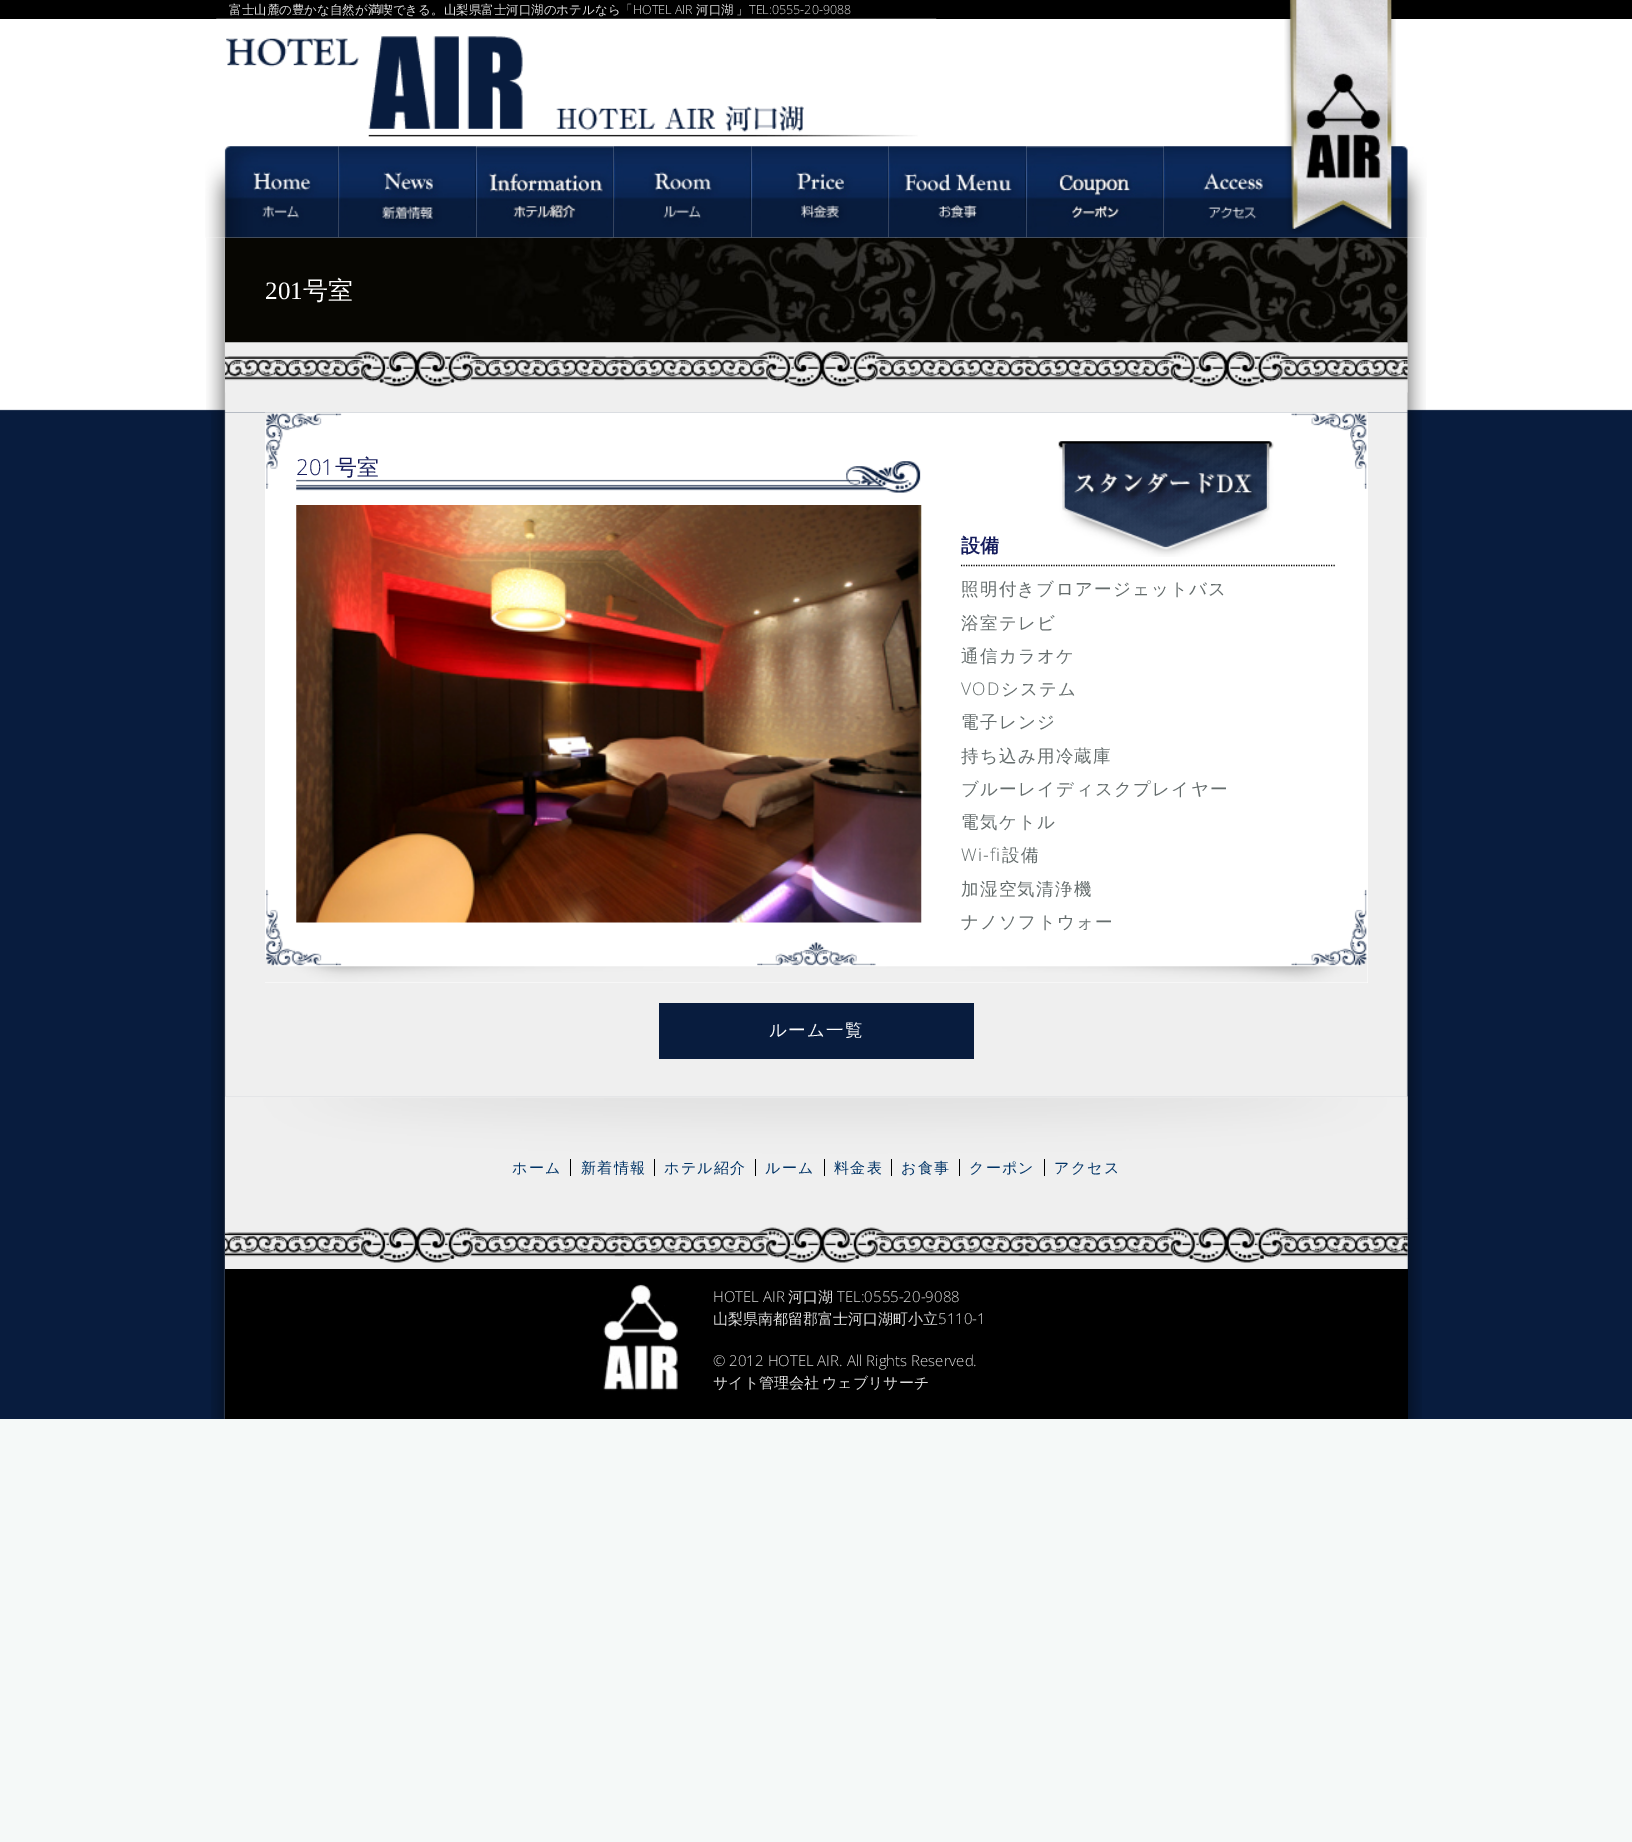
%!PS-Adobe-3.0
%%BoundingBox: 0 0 1632 1842
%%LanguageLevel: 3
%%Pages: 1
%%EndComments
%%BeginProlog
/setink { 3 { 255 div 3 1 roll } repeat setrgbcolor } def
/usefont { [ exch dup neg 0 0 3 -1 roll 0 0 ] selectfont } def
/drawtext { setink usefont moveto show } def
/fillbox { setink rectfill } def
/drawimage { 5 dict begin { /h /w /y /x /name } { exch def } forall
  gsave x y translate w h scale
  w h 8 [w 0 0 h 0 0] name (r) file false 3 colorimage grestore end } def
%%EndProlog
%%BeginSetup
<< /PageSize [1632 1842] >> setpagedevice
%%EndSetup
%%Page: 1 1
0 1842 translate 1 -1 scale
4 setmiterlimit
0 0 1632 1842 245 249 248 fillbox
0 411 1632 1008 8 28 62 fillbox
(assets/img1.rgb) 0 19 1632 392 drawimage
0 0 1632 19 0 0 0 fillbox
(assets/img2.rgb) 216 18 721 119 drawimage
(assets/img12.rgb) 206 237 1220 176 drawimage
(assets/img13.rgb) 225 237 1183 106 drawimage
(assets/img4.rgb) 205 146 134 92 drawimage
(assets/img5.rgb) 338 146 139 92 drawimage
(assets/img6.rgb) 476 146 138 92 drawimage
(assets/img7.rgb) 613 146 139 92 drawimage
(assets/img8.rgb) 751 146 138 92 drawimage
(assets/img9.rgb) 888 146 139 92 drawimage
(assets/img10.rgb) 1026 146 138 92 drawimage
(assets/img11.rgb) 1163 146 264 92 drawimage
(assets/img3.rgb) 1284 0 112 234 drawimage
(富士山麓の豊かな自然が満喫できる。山梨県富士河口湖のホテルなら「) 229 14 /WenQuanYiZenHei-Medium 12.5 223 223 223 drawtext
(HOTEL AIR) 633 14 /OpenSans-Light 12.5 223 223 223 drawtext
(河口湖) 696 14 /WenQuanYiZenHei-Medium 12.5 223 223 223 drawtext
(」) 736 14 /WenQuanYiZenHei-Medium 12.5 223 223 223 drawtext
(TEL:0555-20-9088) 749 14 /OpenSans-Light 12.5 223 223 223 drawtext
(201) 265 299 /LiberationSerif-Regular 25 255 255 255 drawtext
(号室) 303 299 /WenQuanYiZenHei-Medium 25 255 255 255 drawtext
(assets/img14.rgb) 225 342 1183 51 drawimage
(assets/img15.rgb) 211 412 1211 685 drawimage
265 413 1103 570 255 255 255 fillbox
(assets/img16.rgb) 265 412 1103 571 drawimage
(assets/img17.rgb) 296 461 625 32 drawimage
(201) 296 475 /OpenSans-Light 22 21 28 92 drawtext
(号室) 335 475 /WenQuanYiZenHei-Medium 22 21 28 92 drawtext
(assets/img18.rgb) 296 505 626 418 drawimage
(assets/img19.rgb) 1058 441 216 116 drawimage
0 0 0 setink
1.2 setlinewidth
[1.25 1.25] 0 setdash
961 565.5 moveto 1336 565.5 lineto stroke
(設備) 961 552 /WenQuanYiZenHei-Bold 19 21 28 92 drawtext
/WenQuanYiZenHei-Medium 17.5 usefont
101 109 109 setink
961 595 moveto 1.25 0 (照明付きブロアージェットバス) ashow
961 629 moveto 1.25 0 (浴室テレビ) ashow
961 662 moveto 1.25 0 (通信カラオケ) ashow
/OpenSans-Light 17.5 usefont
961 695 moveto 1.25 0 (VOD) ashow
/WenQuanYiZenHei-Medium 17.5 usefont
1001 695 moveto 1.25 0 (システム) ashow
961 728 moveto 1.25 0 (電子レンジ) ashow
961 762 moveto 1.25 0 (持ち込み用冷蔵庫) ashow
961 795 moveto 1.25 0 (ブルーレイディスクプレイヤー) ashow
961 828 moveto 1.25 0 (電気ケトル) ashow
/OpenSans-Light 17.5 usefont
961 861 moveto 1.25 0 (Wi-fi) ashow
/WenQuanYiZenHei-Medium 17.5 usefont
1002 861 moveto 1.25 0 (設備) ashow
961 895 moveto 1.25 0 (加湿空気清浄機) ashow
961 928 moveto 1.25 0 (ナノソフトウォー) ashow
659 1003 315 56 8 28 62 fillbox
255 255 255 setink
769 1036 moveto 1.25 0 (ルーム一覧) ashow
(assets/img20.rgb) 211 1096 1211 323 drawimage
(assets/img21.rgb) 225 1096 1183 123 drawimage
570 1159 1 17 0 0 0 fillbox
/WenQuanYiZenHei-Medium 15 usefont
0 51 102 setink
512 1173 moveto 1.25 0 (ホーム) ashow
654 1159 1 17 0 0 0 fillbox
0 51 102 setink
581 1173 moveto 1.25 0 (新着情報) ashow
755 1159 1 17 0 0 0 fillbox
0 51 102 setink
664 1173 moveto 1.25 0 (ホテル紹介) ashow
824 1159 1 17 0 0 0 fillbox
0 51 102 setink
765 1173 moveto 1.25 0 (ルーム) ashow
891 1159 1 17 0 0 0 fillbox
0 51 102 setink
834 1173 moveto 1.25 0 (料金表) ashow
959 1159 1 17 0 0 0 fillbox
0 51 102 setink
901 1173 moveto 1.25 0 (お食事) ashow
1044 1159 1 17 0 0 0 fillbox
0 51 102 setink
969 1173 moveto 1.25 0 (クーポン) ashow
1054 1173 moveto 1.25 0 (アクセス) ashow
(assets/img22.rgb) 225 1218 1183 51 drawimage
225 1269 1183 150 0 0 0 fillbox
(assets/img23.rgb) 603 1284 75 107 drawimage
(HOTEL AIR) 713 1302 /OpenSans-Light 15 223 223 223 drawtext
(河口湖) 788 1302 /WenQuanYiZenHei-Medium 15 223 223 223 drawtext
(TEL:0555-20-9088) 837 1302 /OpenSans-Light 15 223 223 223 drawtext
(山梨県南都留郡富士河口湖町小立) 713 1324 /WenQuanYiZenHei-Medium 15 223 223 223 drawtext
(5110-1) 938 1324 /OpenSans-Light 15 223 223 223 drawtext
(© 2012 HOTEL AIR. All Rights Reserved.) 713 1366 /OpenSans-Light 15 223 223 223 drawtext
(サイト管理会社) 713 1388 /WenQuanYiZenHei-Medium 15 223 223 223 drawtext
(ウェブリサーチ) 822 1388 /WenQuanYiZenHei-Medium 15 223 223 223 drawtext
showpage
%%EOF
